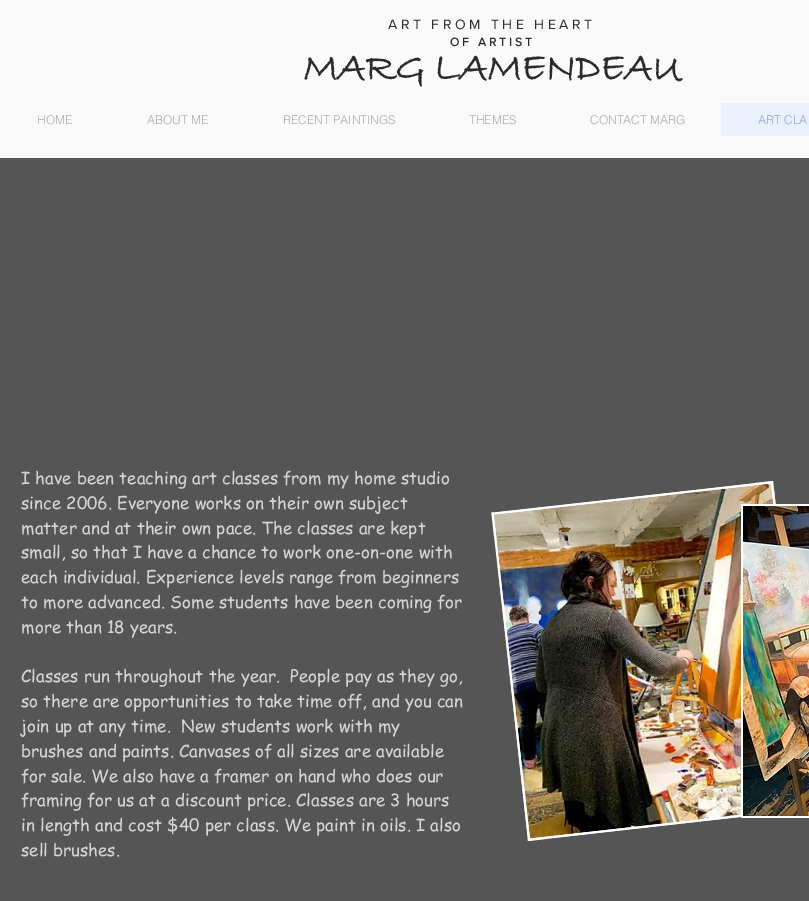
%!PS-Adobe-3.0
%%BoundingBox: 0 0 809 901
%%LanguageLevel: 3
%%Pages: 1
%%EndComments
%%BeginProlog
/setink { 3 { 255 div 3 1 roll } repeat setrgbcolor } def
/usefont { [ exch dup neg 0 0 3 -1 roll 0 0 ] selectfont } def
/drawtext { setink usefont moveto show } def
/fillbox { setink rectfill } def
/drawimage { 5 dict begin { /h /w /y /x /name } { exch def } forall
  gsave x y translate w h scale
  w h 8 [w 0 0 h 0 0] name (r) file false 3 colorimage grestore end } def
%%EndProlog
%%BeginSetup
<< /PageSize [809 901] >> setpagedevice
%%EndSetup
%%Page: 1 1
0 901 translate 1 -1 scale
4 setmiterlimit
0 0 809 901 250 250 250 fillbox
/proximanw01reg-Regular 14 usefont
42 42 42 setink
388 29 moveto 3.5 0 (ART FROM THE HEART) ashow
/proximanw01reg-Bold 12 usefont
450 46 moveto 3 0 (OF ARTIST) ashow
(MARG LAMENDEAU) 303 79 /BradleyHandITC-Bold 40 42 42 42 drawtext
(HOME) 37 124 /helvetica-Light 12 170 170 170 drawtext
(ABOUT ME) 147 124 /helvetica-Light 12 170 170 170 drawtext
(RECENT PAINTINGS) 283 124 /helvetica-Light 12 170 170 170 drawtext
(THEMES) 469 124 /helvetica-Light 12 170 170 170 drawtext
(CONTACT MARG) 590 124 /helvetica-Light 12 170 170 170 drawtext
721 103 88 33 235 241 252 fillbox
(ART CLA) 758 124 /helvetica-Light 12 143 164 205 drawtext
0 158 809 743 85 85 85 fillbox
(I have been teaching art classes from my home studio) 21 484 /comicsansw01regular-Regular 17 213 213 213 drawtext
(since 2006. Everyone works on their own subject) 21 509 /comicsansw01regular-Regular 17 213 213 213 drawtext
(matter and at their own pace. The classes are kept) 21 534 /comicsansw01regular-Regular 17 213 213 213 drawtext
(small, so that I have a chance to work one-on-one with) 21 558 /comicsansw01regular-Regular 17 213 213 213 drawtext
(each individual. Experience levels range from beginners) 21 583 /comicsansw01regular-Regular 17 213 213 213 drawtext
(to more advanced. Some students have been coming for) 21 608 /comicsansw01regular-Regular 17 213 213 213 drawtext
(more than 18 years.) 21 633 /comicsansw01regular-Regular 17 213 213 213 drawtext
(Classes run throughout the year.  People pay as they go,) 21 682 /comicsansw01regular-Regular 17 213 213 213 drawtext
(so there are opportunities to take time off, and you can) 21 707 /comicsansw01regular-Regular 17 213 213 213 drawtext
(join up at any time.  New students work with my) 21 732 /comicsansw01regular-Regular 17 213 213 213 drawtext
(brushes and paints. Canvases of all sizes are available) 21 757 /comicsansw01regular-Regular 17 213 213 213 drawtext
(for sale. We also have a framer on hand who does our) 21 782 /comicsansw01regular-Regular 17 213 213 213 drawtext
(framing for us at a discount price. Classes are 3 hours) 21 806 /comicsansw01regular-Regular 17 213 213 213 drawtext
(in length and cost $40 per class. We paint in oils. I also) 21 831 /comicsansw01regular-Regular 17 213 213 213 drawtext
(sell brushes.) 21 856 /comicsansw01regular-Regular 17 213 213 213 drawtext
255 255 255 setink
492 513 moveto 773 481 lineto 809 809 lineto 528 841 lineto closepath fill
2 setlinewidth
492.5 513.5 moveto 772 482.5 lineto 808.5 808.5 lineto 529 839.5 lineto closepath stroke
(assets/img1.rgb) 494 483 280 356 drawimage
741 504 68 314 255 255 255 fillbox
(assets/img2.rgb) 743 506 66 310 drawimage
showpage
%%EOF
